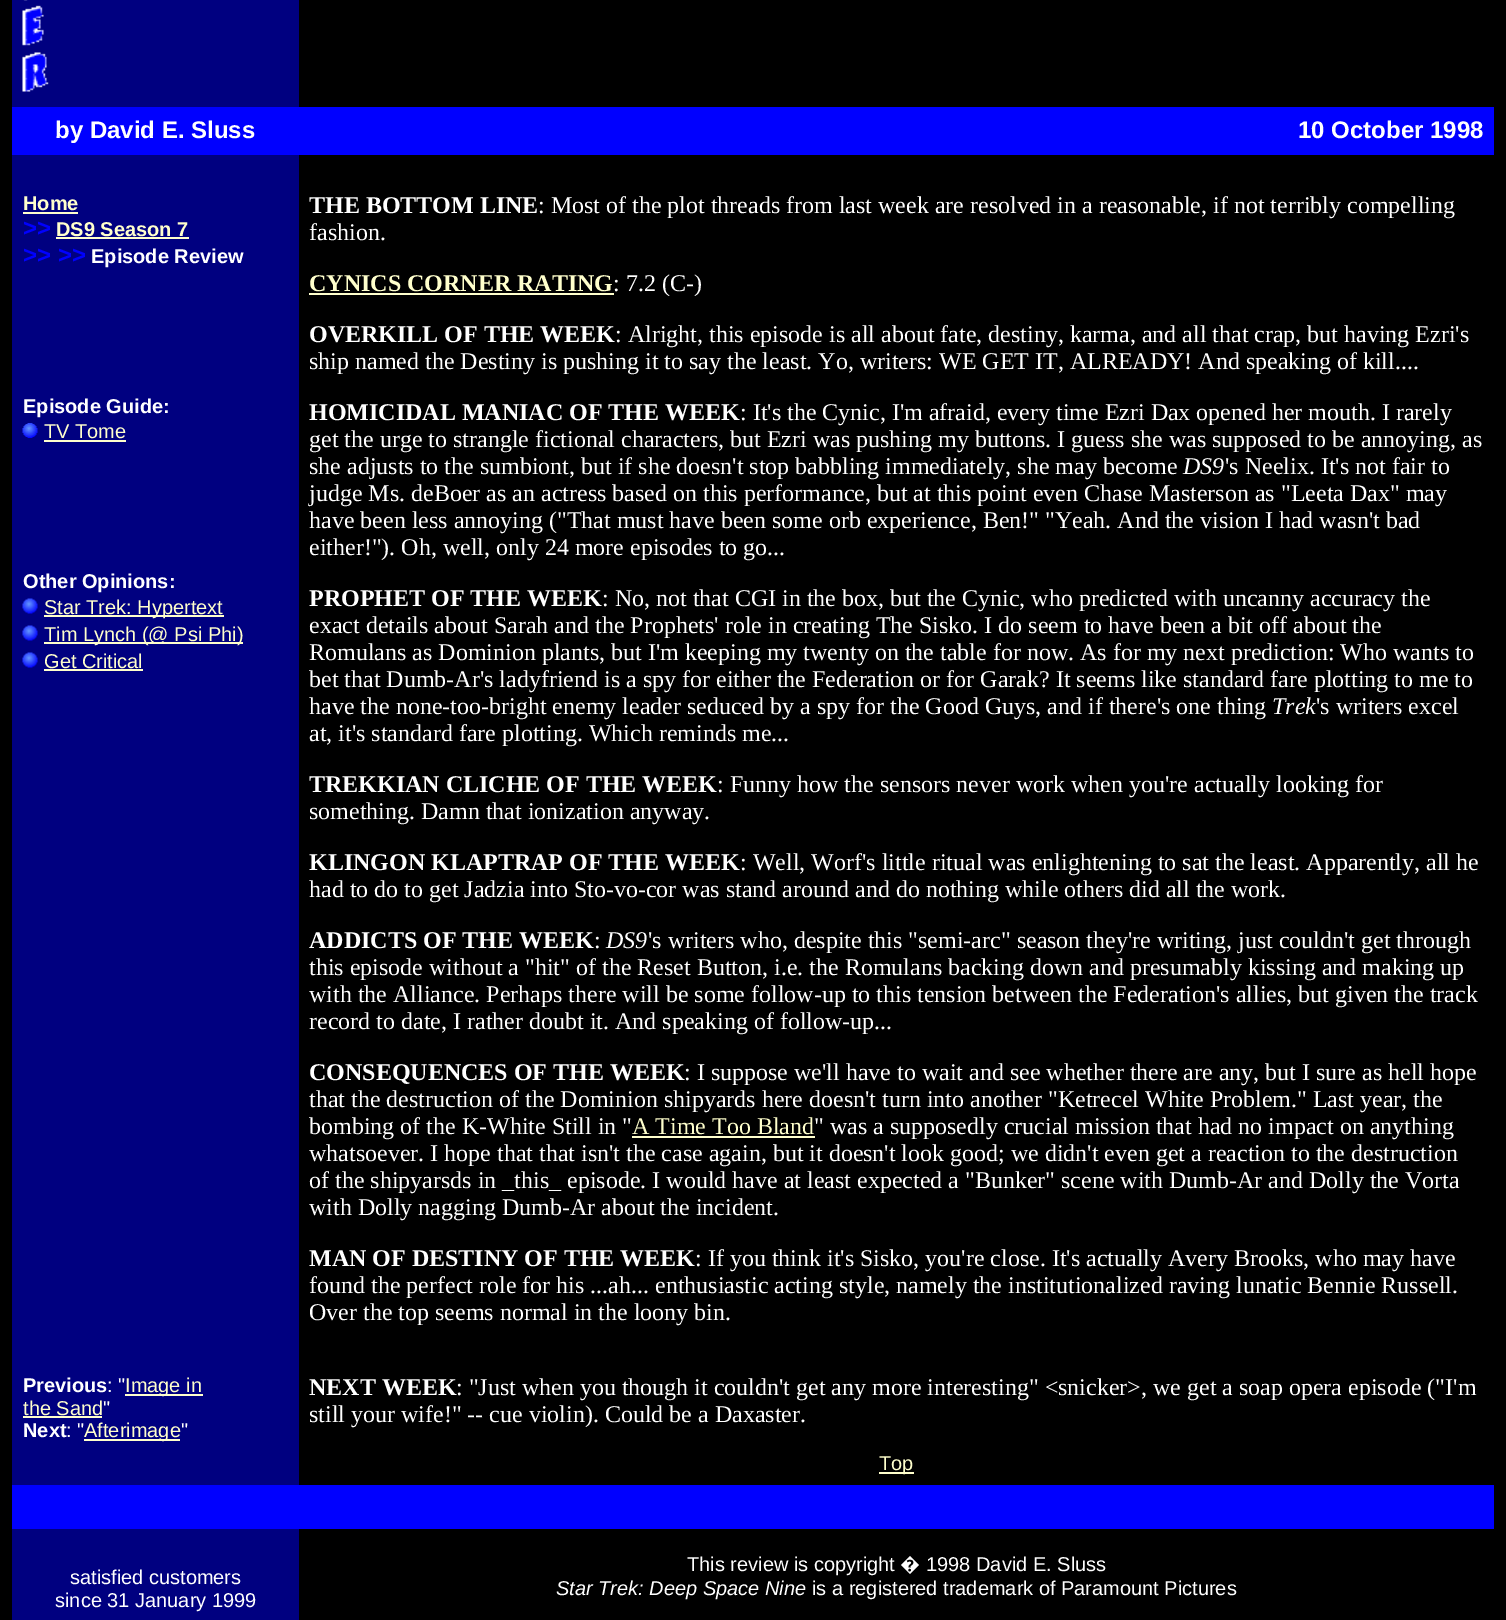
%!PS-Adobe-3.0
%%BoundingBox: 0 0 1506 1620
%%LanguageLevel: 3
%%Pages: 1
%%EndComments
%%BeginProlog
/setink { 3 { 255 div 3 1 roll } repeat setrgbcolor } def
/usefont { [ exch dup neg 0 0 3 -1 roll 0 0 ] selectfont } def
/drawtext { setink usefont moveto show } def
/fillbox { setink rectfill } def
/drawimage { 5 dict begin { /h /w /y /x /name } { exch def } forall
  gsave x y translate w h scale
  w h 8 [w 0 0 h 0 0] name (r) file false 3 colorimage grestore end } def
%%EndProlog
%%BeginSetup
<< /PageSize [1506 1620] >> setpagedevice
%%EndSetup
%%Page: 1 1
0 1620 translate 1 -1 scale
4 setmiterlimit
0 0 1506 1620 0 0 0 fillbox
12 0 287 107 0 0 128 fillbox
(assets/img1.rgb) 22 0 27 92 drawimage
12 107 1482 48 0 0 255 fillbox
(by David E. Sluss) 55 138 /LiberationSans-Bold 24 255 255 255 drawtext
(10 October 1998) 1298 138 /LiberationSans-Bold 24 255 255 255 drawtext
12 155 287 1330 0 0 128 fillbox
(Home) 23 210 /LiberationSans-Bold 20 255 255 204 drawtext
23 212 55 2 255 255 204 fillbox
(>>) 23 236 /LiberationSans-Bold 24 0 0 255 drawtext
(DS9 Season 7) 56 236 /LiberationSans-Bold 20 255 255 204 drawtext
56 237 133 2 255 255 204 fillbox
(>> >>) 23 263 /LiberationSans-Bold 24 0 0 255 drawtext
(Episode Review) 91 263 /LiberationSans-Bold 20 255 255 255 drawtext
(Episode Guide:) 23 413 /LiberationSans-Bold 20 255 255 255 drawtext
(assets/img2.rgb) 22 423 16 15 drawimage
(TV Tome) 44 438 /LiberationSans-Regular 20 255 255 204 drawtext
44 440 82 2 255 255 204 fillbox
(Other Opinions:) 23 588 /LiberationSans-Bold 20 255 255 255 drawtext
(assets/img3.rgb) 22 598 16 16 drawimage
44 615 180 2 255 255 204 fillbox
(Star Trek: Hypertext) 44 614 /LiberationSans-Regular 20 255 255 204 drawtext
(assets/img3.rgb) 22 625 16 16 drawimage
44 642 199 2 255 255 204 fillbox
(Tim Lynch \(@ Psi Phi\)) 44 641 /LiberationSans-Regular 20 255 255 204 drawtext
(assets/img3.rgb) 22 652 16 16 drawimage
(Get Critical) 44 668 /LiberationSans-Regular 20 255 255 204 drawtext
44 669 99 2 255 255 204 fillbox
(THE BOTTOM LINE) 309 213 /LiberationSerif-Bold 24 255 255 255 drawtext
(: Most of the plot threads from last week are resolved in a reasonable, if not terribly compelling) 538 213 /LiberationSerif-Regular 24 255 255 255 drawtext
(fashion.) 309 240 /LiberationSerif-Regular 24 255 255 255 drawtext
(CYNICS CORNER RATING) 309 291 /LiberationSerif-Bold 24 255 255 204 drawtext
309 293 305 2 255 255 204 fillbox
(: 7.2 \(C-\)) 613 291 /LiberationSerif-Regular 24 255 255 255 drawtext
(OVERKILL OF THE WEEK) 309 342 /LiberationSerif-Bold 24 255 255 255 drawtext
(: Alright, this episode is all about fate, destiny, karma, and all that crap, but having Ezri's) 615 342 /LiberationSerif-Regular 24 255 255 255 drawtext
(ship named the Destiny is pushing it to say the least. Yo, writers: WE GET IT, ALREADY! And speaking of kill....) 309 369 /LiberationSerif-Regular 24 255 255 255 drawtext
(HOMICIDAL MANIAC OF THE WEEK) 309 420 /LiberationSerif-Bold 24 255 255 255 drawtext
(: It's the Cynic, I'm afraid, every time Ezri Dax opened her mouth. I rarely) 740 420 /LiberationSerif-Regular 24 255 255 255 drawtext
(get the urge to strangle fictional characters, but Ezri was pushing my buttons. I guess she was supposed to be annoying, as) 309 447 /LiberationSerif-Regular 24 255 255 255 drawtext
(she adjusts to the sumbiont, but if she doesn't stop babbling immediately, she may become) 309 474 /LiberationSerif-Regular 24 255 255 255 drawtext
(DS9) 1183 474 /LiberationSerif-Italic 24 255 255 255 drawtext
('s Neelix. It's not fair to) 1225 474 /LiberationSerif-Regular 24 255 255 255 drawtext
(judge Ms. deBoer as an actress based on this performance, but at this point even Chase Masterson as "Leeta Dax" may) 309 501 /LiberationSerif-Regular 24 255 255 255 drawtext
(have been less annoying \("That must have been some orb experience, Ben!" "Yeah. And the vision I had wasn't bad) 309 528 /LiberationSerif-Regular 24 255 255 255 drawtext
(either!"\). Oh, well, only 24 more episodes to go...) 309 555 /LiberationSerif-Regular 24 255 255 255 drawtext
(PROPHET OF THE WEEK) 309 606 /LiberationSerif-Bold 24 255 255 255 drawtext
(: No, not that CGI in the box, but the Cynic, who predicted with uncanny accuracy the) 602 606 /LiberationSerif-Regular 24 255 255 255 drawtext
(exact details about Sarah and the Prophets' role in creating The Sisko. I do seem to have been a bit off about the) 309 633 /LiberationSerif-Regular 24 255 255 255 drawtext
(Romulans as Dominion plants, but I'm keeping my twenty on the table for now. As for my next prediction: Who wants to) 309 660 /LiberationSerif-Regular 24 255 255 255 drawtext
(bet that Dumb-Ar's ladyfriend is a spy for either the Federation or for Garak? It seems like standard fare plotting to me to) 309 687 /LiberationSerif-Regular 24 255 255 255 drawtext
(have the none-too-bright enemy leader seduced by a spy for the Good Guys, and if there's one thing) 309 714 /LiberationSerif-Regular 24 255 255 255 drawtext
(Trek) 1272 714 /LiberationSerif-Italic 24 255 255 255 drawtext
('s writers excel) 1316 714 /LiberationSerif-Regular 24 255 255 255 drawtext
(at, it's standard fare plotting. Which reminds me...) 309 741 /LiberationSerif-Regular 24 255 255 255 drawtext
(TREKKIAN CLICHE OF THE WEEK) 309 792 /LiberationSerif-Bold 24 255 255 255 drawtext
(: Funny how the sensors never work when you're actually looking for) 717 792 /LiberationSerif-Regular 24 255 255 255 drawtext
(something. Damn that ionization anyway.) 309 819 /LiberationSerif-Regular 24 255 255 255 drawtext
(KLINGON KLAPTRAP OF THE WEEK) 309 870 /LiberationSerif-Bold 24 255 255 255 drawtext
(: Well, Worf's little ritual was enlightening to sat the least. Apparently, all he) 740 870 /LiberationSerif-Regular 24 255 255 255 drawtext
(had to do to get Jadzia into Sto-vo-cor was stand around and do nothing while others did all the work.) 309 897 /LiberationSerif-Regular 24 255 255 255 drawtext
(ADDICTS OF THE WEEK) 309 948 /LiberationSerif-Bold 24 255 255 255 drawtext
(:) 594 948 /LiberationSerif-Regular 24 255 255 255 drawtext
(DS9) 606 948 /LiberationSerif-Italic 24 255 255 255 drawtext
('s writers who, despite this "semi-arc" season they're writing, just couldn't get through) 648 948 /LiberationSerif-Regular 24 255 255 255 drawtext
(this episode without a "hit" of the Reset Button, i.e. the Romulans backing down and presumably kissing and making up) 309 975 /LiberationSerif-Regular 24 255 255 255 drawtext
(with the Alliance. Perhaps there will be some follow-up to this tension between the Federation's allies, but given the track) 309 1002 /LiberationSerif-Regular 24 255 255 255 drawtext
(record to date, I rather doubt it. And speaking of follow-up...) 309 1029 /LiberationSerif-Regular 24 255 255 255 drawtext
(CONSEQUENCES OF THE WEEK) 309 1080 /LiberationSerif-Bold 24 255 255 255 drawtext
(: I suppose we'll have to wait and see whether there are any, but I sure as hell hope) 684 1080 /LiberationSerif-Regular 24 255 255 255 drawtext
(that the destruction of the Dominion shipyards here doesn't turn into another "Ketrecel White Problem." Last year, the) 309 1107 /LiberationSerif-Regular 24 255 255 255 drawtext
(bombing of the K-White Still in ") 309 1134 /LiberationSerif-Regular 24 255 255 255 drawtext
(A Time Too Bland) 632 1134 /LiberationSerif-Regular 24 255 255 204 drawtext
632 1136 183 2 255 255 204 fillbox
(" was a supposedly crucial mission that had no impact on anything) 814 1134 /LiberationSerif-Regular 24 255 255 255 drawtext
(whatsoever. I hope that that isn't the case again, but it doesn't look good; we didn't even get a reaction to the destruction) 309 1161 /LiberationSerif-Regular 24 255 255 255 drawtext
(of the shipyarsds in _this_ episode. I would have at least expected a "Bunker" scene with Dumb-Ar and Dolly the Vorta) 309 1188 /LiberationSerif-Regular 24 255 255 255 drawtext
(with Dolly nagging Dumb-Ar about the incident.) 309 1215 /LiberationSerif-Regular 24 255 255 255 drawtext
(MAN OF DESTINY OF THE WEEK) 309 1266 /LiberationSerif-Bold 24 255 255 255 drawtext
(: If you think it's Sisko, you're close. It's actually Avery Brooks, who may have) 695 1266 /LiberationSerif-Regular 24 255 255 255 drawtext
(found the perfect role for his ...ah... enthusiastic acting style, namely the institutionalized raving lunatic Bennie Russell.) 309 1293 /LiberationSerif-Regular 24 255 255 255 drawtext
(Over the top seems normal in the loony bin.) 309 1320 /LiberationSerif-Regular 24 255 255 255 drawtext
(Previous) 23 1392 /LiberationSans-Bold 20 255 255 255 drawtext
(: ") 107 1392 /LiberationSans-Regular 20 255 255 255 drawtext
125 1394 78 2 255 255 204 fillbox
(Image in) 125 1392 /LiberationSans-Regular 20 255 255 204 drawtext
(the Sand) 23 1415 /LiberationSans-Regular 20 255 255 204 drawtext
23 1416 79 2 255 255 204 fillbox
(") 103 1415 /LiberationSans-Regular 20 255 255 255 drawtext
(Next) 23 1437 /LiberationSans-Bold 20 255 255 255 drawtext
(: ") 66 1437 /LiberationSans-Regular 20 255 255 255 drawtext
84 1439 96 2 255 255 204 fillbox
(Afterimage) 84 1437 /LiberationSans-Regular 20 255 255 204 drawtext
(") 181 1437 /LiberationSans-Regular 20 255 255 255 drawtext
(NEXT WEEK) 309 1395 /LiberationSerif-Bold 24 255 255 255 drawtext
(: "Just when you though it couldn't get any more interesting" <snicker>, we get a soap opera episode \("I'm) 456 1395 /LiberationSerif-Regular 24 255 255 255 drawtext
(still your wife!" -- cue violin\). Could be a Daxaster.) 309 1422 /LiberationSerif-Regular 24 255 255 255 drawtext
879 1472 35 2 255 255 204 fillbox
(Top) 879 1470 /LiberationSans-Regular 20 255 255 204 drawtext
12 1485 1482 44 0 0 255 fillbox
12 1529 287 91 0 0 128 fillbox
(satisfied customers) 70 1584 /LiberationSans-Regular 20 255 255 255 drawtext
(since 31 January 1999) 55 1607 /LiberationSans-Regular 20 255 255 255 drawtext
(This review is copyright) 687 1571 /LiberationSans-Regular 20 255 255 255 drawtext
(�) 900 1571 /NotoSans-Regular 20 255 255 255 drawtext
(1998 David E. Sluss) 926 1571 /LiberationSans-Regular 20 255 255 255 drawtext
(Star Trek: Deep Space Nine) 556 1595 /LiberationSans-Italic 20 255 255 255 drawtext
(is a registered trademark of Paramount Pictures) 812 1595 /LiberationSans-Regular 20 255 255 255 drawtext
showpage
%%EOF
